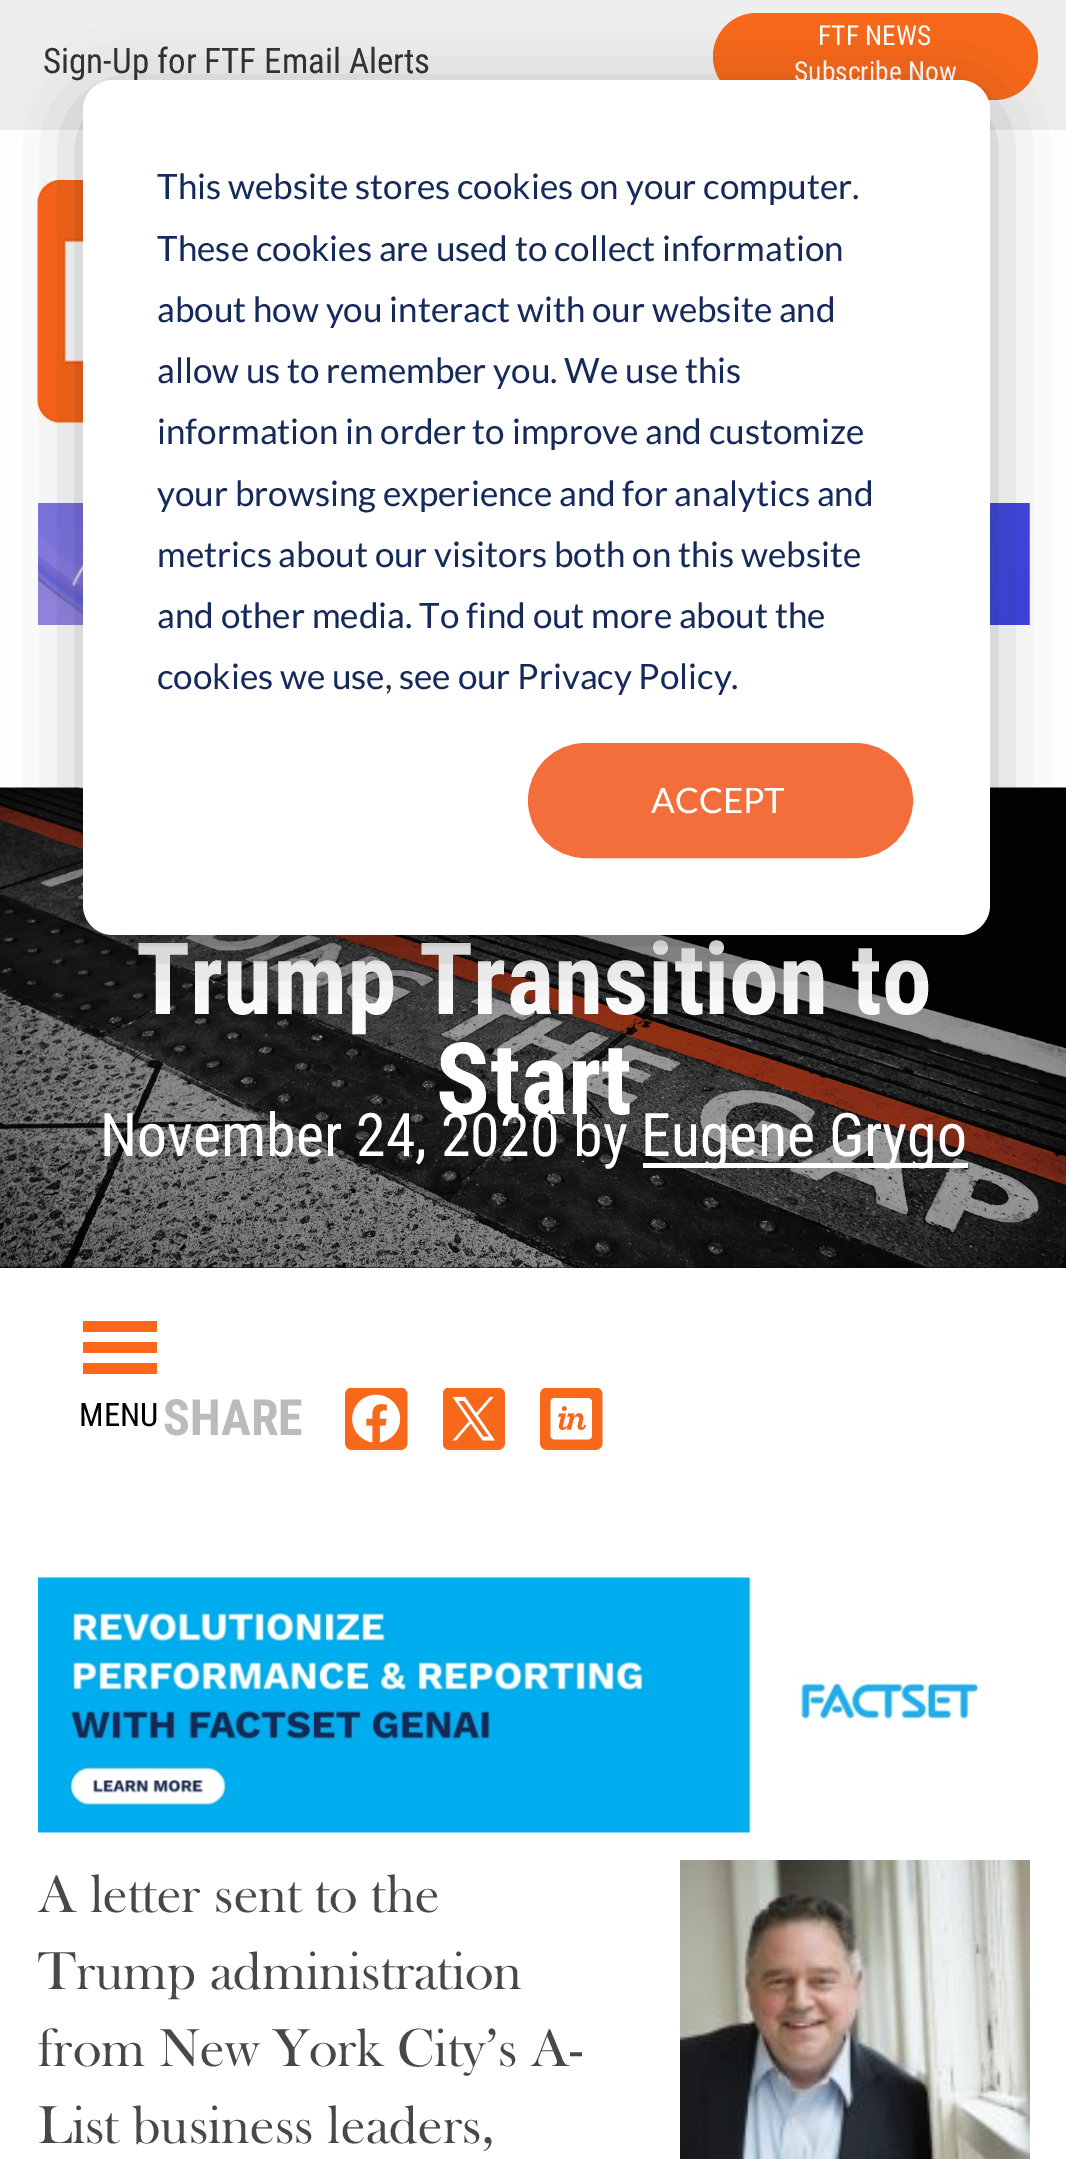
%!PS-Adobe-3.0
%%BoundingBox: 0 0 1066 2159
%%LanguageLevel: 3
%%Pages: 1
%%EndComments
%%BeginProlog
/setink { 3 { 255 div 3 1 roll } repeat setrgbcolor } def
/usefont { [ exch dup neg 0 0 3 -1 roll 0 0 ] selectfont } def
/drawtext { setink usefont moveto show } def
/fillbox { setink rectfill } def
/setalpha { dup .setfillconstantalpha .setstrokeconstantalpha } def
/rrect { 5 dict begin { /r /h /w /y /x } { exch def } forall
  x r add y moveto x w add y 2 copy h add r arct x w add y h add x 1 index r arct
  x y h add x y r arct x y 2 copy exch w add exch r arct closepath end } def
/softshadow { 12 dict begin { /a /b /q /h /w /y /x } { exch def } forall gsave /was 0 def
  9 -2 -9 { dup b mul 4 div /e exch def 1 sub .425 mul 2.718 exch exp 1 add a .99 .min exch div /now exch def
    1 1 now sub 1 was sub div sub setalpha /was now def
    w h .min e 2 mul add 0 gt { x e sub y e sub w e 2 mul add h e 2 mul add
      q e add b .6 mul add w h .min 2 div e add .min 0 .max rrect fill } if } for grestore end } def
/drawimage { 5 dict begin { /h /w /y /x /name } { exch def } forall
  gsave x y translate w h scale
  w h 8 [w 0 0 h 0 0] name (r) file false 3 colorimage grestore end } def
%%EndProlog
%%BeginSetup
<< /PageSize [1066 2159] /PageUsesTransparency true >> setpagedevice
%%EndSetup
%%Page: 1 1
0 .pushpdf14devicefilter
0 2159 translate 1 -1 scale
4 setmiterlimit
0 0 1066 2159 255 255 255 fillbox
0 0 1066 130 238 238 238 fillbox
(Sign-Up for FTF Email Alerts) 43 73 /RobotoCondensed-Regular 35 51 51 51 drawtext
247 104 26 setink
713 13 325 87 43.5 rrect fill
(FTF NEWS) 818 45 /RobotoCondensed-Regular 27.5 255 255 255 drawtext
(Subscribe Now) 794 81 /RobotoCondensed-Regular 27.5 255 255 255 drawtext
(assets/img1.rgb) 38 503 992 122 drawimage
(assets/img2.rgb) 37 180 46 243 drawimage
0 1267 1066 1 0 0 0 fillbox
(assets/img3.rgb) 0 787 1066 481 drawimage
(Trump Transition to) 136 1014 /RobotoCondensed-Bold 100 255 255 255 drawtext
(Start) 436 1114 /RobotoCondensed-Bold 100 255 255 255 drawtext
(November 24, 2020 by) 100 1156 /RobotoCondensed-Regular 60 255 255 255 drawtext
643 1163 325 5 255 255 255 fillbox
(Eugene Grygo) 641 1156 /RobotoCondensed-Regular 60 255 255 255 drawtext
253 103 26 setink
83 1374 moveto 157 1374 lineto 157 1363 lineto 83 1363 lineto closepath 83 1321 moveto 83 1332 lineto 157 1332 lineto 157 1321 lineto closepath 83 1353 moveto 157 1353 lineto 157 1342 lineto 83 1342 lineto closepath fill
(MENU) 79 1426 /RobotoCondensed-Regular 32.5 0 0 0 drawtext
(SHARE) 163 1435 /RobotoCondensed-Bold 50 187 187 187 drawtext
(assets/img4.rgb) 345 1388 63 62 drawimage
(assets/img5.rgb) 443 1388 62 62 drawimage
(assets/img6.rgb) 540 1388 63 62 drawimage
(assets/img7.rgb) 38 1577 942 256 drawimage
(A letter sent to the) 38 1912 /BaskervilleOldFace-Regular 55 72 72 72 drawtext
(Trump administration) 38 1989 /BaskervilleOldFace-Regular 55 72 72 72 drawtext
(from New York City’s A-) 38 2066 /BaskervilleOldFace-Regular 55 72 72 72 drawtext
(List business leaders,) 38 2143 /BaskervilleOldFace-Regular 55 72 72 72 drawtext
(assets/img8.rgb) 680 1860 350 299 drawimage
gsave
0 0 moveto 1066 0 lineto 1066 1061 lineto 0 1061 lineto closepath 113 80 moveto 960 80 lineto 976.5 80 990 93.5 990 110 curveto 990 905 lineto 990 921.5 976.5 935 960 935 curveto 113 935 lineto 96.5 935 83 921.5 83 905 curveto 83 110 lineto 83 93.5 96.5 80 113 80 curveto closepath eoclip newpath
0 0 0 setink
83 100 907 855 30 35 0.28 softshadow
grestore
255 255 255 setink
83 80 907 855 30 rrect fill
(This website stores cookies on your computer.) 157 199 /Lato-Regular 35 21 41 90 drawtext
(These cookies are used to collect information) 157 261 /Lato-Regular 35 21 41 90 drawtext
(about how you interact with our website and) 157 322 /Lato-Regular 35 21 41 90 drawtext
(allow us to remember you. We use this) 157 383 /Lato-Regular 35 21 41 90 drawtext
(information in order to improve and customize) 157 444 /Lato-Regular 35 21 41 90 drawtext
(your browsing experience and for analytics and) 157 506 /Lato-Regular 35 21 41 90 drawtext
(metrics about our visitors both on this website) 157 567 /Lato-Regular 35 21 41 90 drawtext
(and other media. To find out more about the) 157 628 /Lato-Regular 35 21 41 90 drawtext
(cookies we use, see our Privacy Policy.) 157 689 /Lato-Regular 35 21 41 90 drawtext
243 110 59 setink
529.5 744.5 382 112 56 rrect gsave fill grestore
3 setlinewidth
stroke
(ACCEPT) 651 813 /Lato-Regular 35 255 255 255 drawtext
.poppdf14devicefilter showpage
%%EOF
